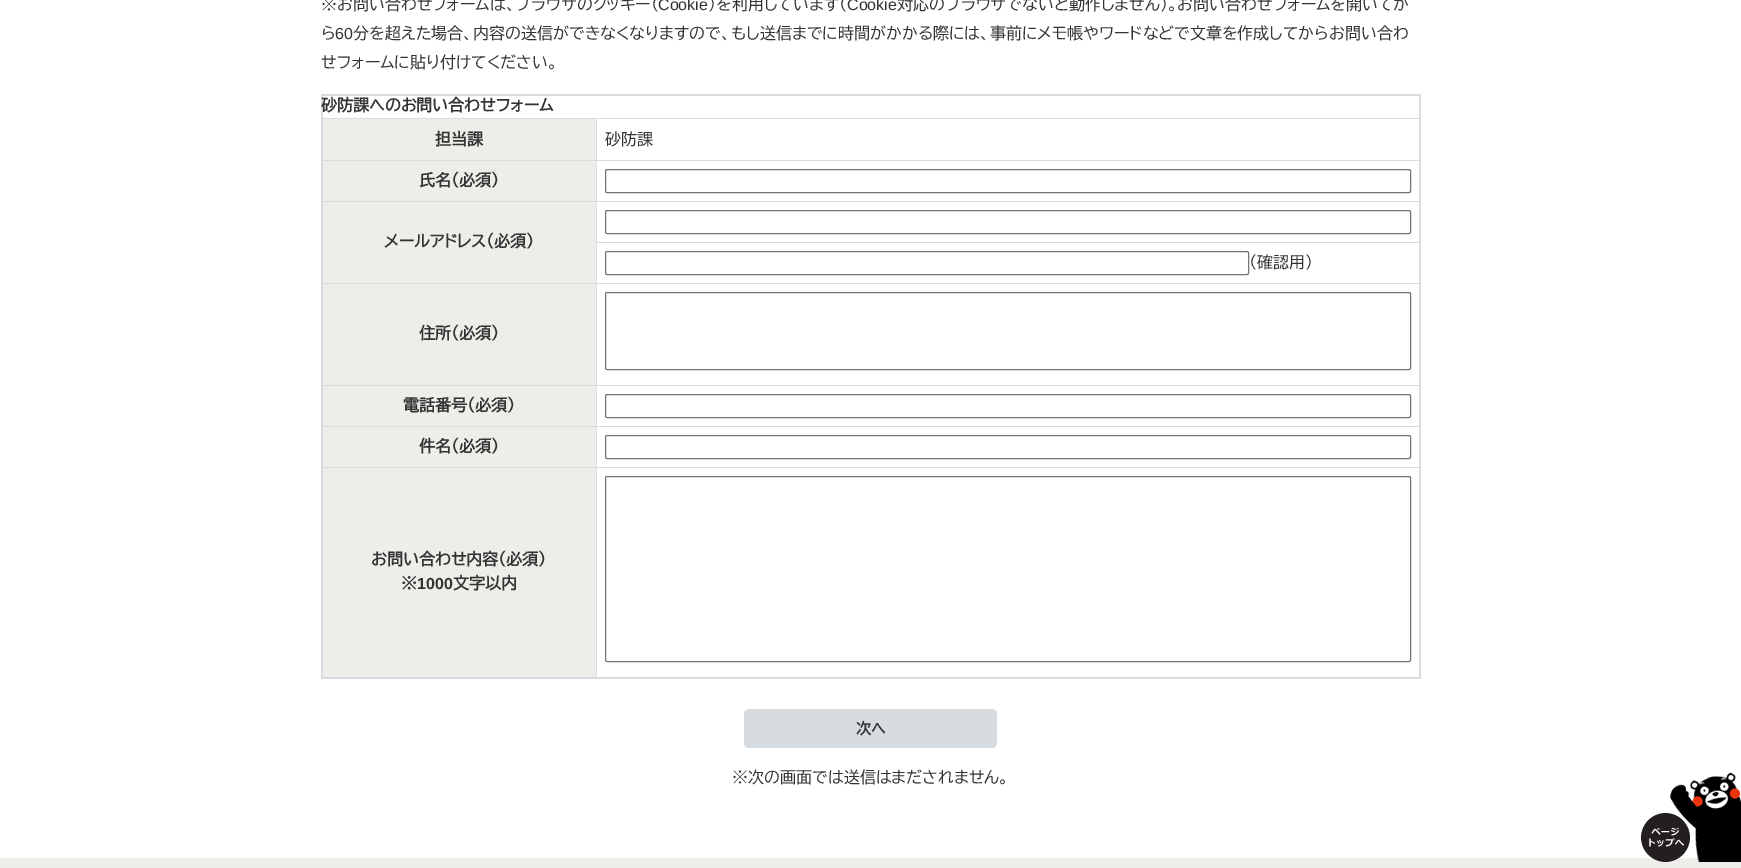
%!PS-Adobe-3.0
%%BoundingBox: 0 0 1741 868
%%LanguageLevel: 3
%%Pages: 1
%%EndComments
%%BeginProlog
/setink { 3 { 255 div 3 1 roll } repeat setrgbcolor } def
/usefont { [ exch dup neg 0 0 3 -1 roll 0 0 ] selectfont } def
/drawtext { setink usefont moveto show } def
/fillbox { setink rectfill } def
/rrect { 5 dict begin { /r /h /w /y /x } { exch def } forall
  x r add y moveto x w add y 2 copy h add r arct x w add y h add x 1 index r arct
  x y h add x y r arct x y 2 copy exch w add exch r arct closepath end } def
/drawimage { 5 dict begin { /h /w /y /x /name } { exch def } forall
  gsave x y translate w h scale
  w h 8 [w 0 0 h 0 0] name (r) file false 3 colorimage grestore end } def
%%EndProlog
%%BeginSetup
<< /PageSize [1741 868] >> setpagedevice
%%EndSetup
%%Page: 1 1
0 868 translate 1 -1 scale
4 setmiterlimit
0 0 1741 868 255 255 255 fillbox
(※お問い合わせフォームは、ブラウザのクッキー（) 321 10 /BIZUDPGothic-Regular 16 51 51 51 drawtext
(Cookie) 658 10 /LiberationSans-Regular 16 51 51 51 drawtext
(）を利用しています（) 708 10 /BIZUDPGothic-Regular 16 51 51 51 drawtext
(Cookie) 847 10 /LiberationSans-Regular 16 51 51 51 drawtext
(対応のブラウザでないと動作しません）。お問い合わせフォームを開いてか) 897 10 /BIZUDPGothic-Regular 16 51 51 51 drawtext
(ら) 321 39 /BIZUDPGothic-Regular 16 51 51 51 drawtext
(60) 335 39 /LiberationSans-Regular 16 51 51 51 drawtext
(分を超えた場合、内容の送信ができなくなりますので、もし送信までに時間がかかる際には、事前にメモ帳やワードなどで文章を作成してからお問い合わ) 353 39 /BIZUDPGothic-Regular 16 51 51 51 drawtext
(せフォームに貼り付けてください。) 321 68 /BIZUDPGothic-Regular 16 51 51 51 drawtext
321 94 1100 2 215 220 224 fillbox
596 118 824 1 215 220 224 fillbox
596 160 824 1 215 220 224 fillbox
596 201 824 1 215 220 224 fillbox
596 242 824 1 215 220 224 fillbox
596 283 824 1 215 220 224 fillbox
596 385 824 1 215 220 224 fillbox
596 426 824 1 215 220 224 fillbox
596 467 824 1 215 220 224 fillbox
1419 94 2 585 215 220 224 fillbox
596 467 1 211 215 220 224 fillbox
321 677 1100 2 215 220 224 fillbox
321 467 276 1 215 220 224 fillbox
596 426 1 42 215 220 224 fillbox
321 426 276 1 215 220 224 fillbox
596 385 1 42 215 220 224 fillbox
321 385 276 1 215 220 224 fillbox
596 283 1 103 215 220 224 fillbox
321 283 276 1 215 220 224 fillbox
596 242 1 42 215 220 224 fillbox
596 201 1 42 215 220 224 fillbox
321 201 276 1 215 220 224 fillbox
596 160 1 42 215 220 224 fillbox
321 160 276 1 215 220 224 fillbox
596 118 1 43 215 220 224 fillbox
321 118 276 1 215 220 224 fillbox
321 94 2 585 215 220 224 fillbox
(砂防課へのお問い合わせフォーム) 321 111 /BIZUDPGothic-Bold 16 51 51 51 drawtext
323 119 273 41 238 237 233 fillbox
(担当課) 435 145 /BIZUDPGothic-Bold 16 51 51 51 drawtext
(砂防課) 605 145 /BIZUDPGothic-Regular 16 51 51 51 drawtext
323 161 273 40 238 237 233 fillbox
(氏名（必須）) 419 186 /BIZUDPGothic-Bold 16 51 51 51 drawtext
118 118 118 setink
605.5 169.5 805 23 1.5 rrect stroke
323 202 273 81 238 237 233 fillbox
(メールアドレス（必須）) 384 247 /BIZUDPGothic-Bold 16 51 51 51 drawtext
118 118 118 setink
605.5 210.5 805 23 1.5 rrect stroke
605.5 251.5 643 23 1.5 rrect stroke
(（確認用）) 1249 268 /BIZUDPGothic-Regular 16 51 51 51 drawtext
323 284 273 101 238 237 233 fillbox
(住所（必須）) 419 339 /BIZUDPGothic-Bold 16 51 51 51 drawtext
118 118 118 setink
605.5 292.5 805 77 1.5 rrect stroke
323 386 273 40 238 237 233 fillbox
(電話番号（必須）) 403 411 /BIZUDPGothic-Bold 16 51 51 51 drawtext
118 118 118 setink
605.5 394.5 805 23 1.5 rrect stroke
323 427 273 40 238 237 233 fillbox
(件名（必須）) 419 452 /BIZUDPGothic-Bold 16 51 51 51 drawtext
118 118 118 setink
605.5 435.5 805 23 1.5 rrect stroke
323 468 273 209 238 237 233 fillbox
(お問い合わせ内容（必須）) 371 565 /BIZUDPGothic-Bold 16 51 51 51 drawtext
(※) 401 589 /BIZUDPGothic-Bold 16 51 51 51 drawtext
(1000) 417 589 /LiberationSans-Bold 16 51 51 51 drawtext
(文字以内) 453 589 /BIZUDPGothic-Bold 16 51 51 51 drawtext
118 118 118 setink
605.5 476.5 805 185 1.5 rrect stroke
215 220 224 setink
744 709 253 39 5 rrect fill
(次へ) 856 734 /BIZUDPGothic-Bold 15 51 51 51 drawtext
(※次の画面では送信はまだされません。) 732 783 /BIZUDPGothic-Regular 16 51 51 51 drawtext
0 858 1741 10 238 237 233 fillbox
(assets/img1.rgb) 1641 772 100 90 drawimage
showpage
%%EOF
